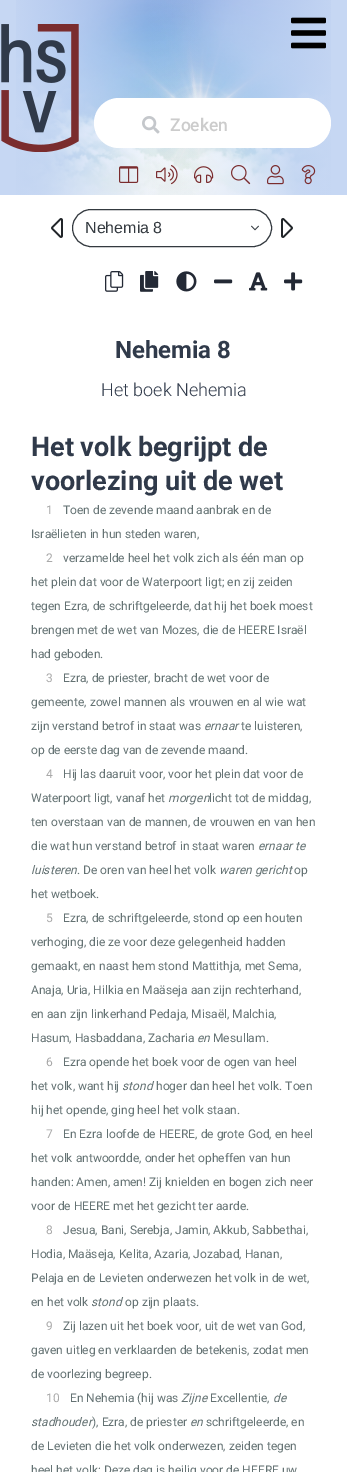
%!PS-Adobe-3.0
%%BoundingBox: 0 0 347 1472
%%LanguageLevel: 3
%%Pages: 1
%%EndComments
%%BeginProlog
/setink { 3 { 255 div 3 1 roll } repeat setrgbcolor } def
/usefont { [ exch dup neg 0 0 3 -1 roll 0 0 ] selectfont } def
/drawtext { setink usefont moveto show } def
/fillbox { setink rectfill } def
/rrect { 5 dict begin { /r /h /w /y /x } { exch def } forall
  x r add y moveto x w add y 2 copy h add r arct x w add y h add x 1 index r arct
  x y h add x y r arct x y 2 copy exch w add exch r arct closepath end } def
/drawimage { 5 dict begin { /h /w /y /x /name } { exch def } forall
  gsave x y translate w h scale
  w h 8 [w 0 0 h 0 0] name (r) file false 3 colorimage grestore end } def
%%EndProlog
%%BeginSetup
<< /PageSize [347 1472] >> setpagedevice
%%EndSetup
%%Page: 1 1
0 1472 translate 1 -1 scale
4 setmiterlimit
0 0 347 1472 198 215 243 fillbox
(assets/img1.rgb) 16 0 315 195 drawimage
(assets/img2.rgb) 1 24 78 128 drawimage
(assets/img3.rgb) 291 17 35 32 drawimage
255 255 255 setink
94 98 237 50 25 rrect fill
(assets/img4.rgb) 142 116 18 18 drawimage
(Zoeken) 170 131 /Roboto-Medium 17.5 204 204 204 drawtext
0 195 347 1277 255 255 255 fillbox
(assets/img5.rgb) 119 166 20 17 drawimage
(assets/img6.rgb) 156 165 22 20 drawimage
(assets/img7.rgb) 194 166 20 17 drawimage
(assets/img8.rgb) 231 165 20 20 drawimage
(assets/img9.rgb) 267 165 17 20 drawimage
(assets/img10.rgb) 301 165 15 20 drawimage
(assets/img11.rgb) 51 218 12 20 drawimage
52 58 64 setink
72.5 209.5 199 37 18.5 rrect stroke
(Nehemia 8) 85 233 /LiberationSans-Regular 16 52 58 64 drawtext
(assets/img12.rgb) 251 225 8 6 drawimage
(assets/img13.rgb) 281 218 12 20 drawimage
(assets/img14.rgb) 105 271 19 21 drawimage
(assets/img15.rgb) 140 271 19 21 drawimage
(assets/img16.rgb) 176 271 21 21 drawimage
(assets/img17.rgb) 214 279 19 5 drawimage
(assets/img18.rgb) 249 272 19 19 drawimage
(assets/img19.rgb) 284 272 19 19 drawimage
(Nehemia 8) 115 358 /Roboto-Bold 24 48 58 74 drawtext
(Het boek Nehemia) 101 396 /Roboto-Light 18 48 58 74 drawtext
(Het volk begrijpt de) 31 456 /Roboto-Bold 27 48 58 74 drawtext
(voorlezing uit de wet) 31 490 /Roboto-Bold 27 48 58 74 drawtext
(1) 46 514 /Roboto-Regular 12 169 169 169 drawtext
(Toen de zevende maand aanbrak en de) 63 514 /Roboto-Regular 12 100 114 115 drawtext
(Israëlieten in hun steden waren,) 31 538 /Roboto-Regular 12 100 114 115 drawtext
(2) 46 562 /Roboto-Regular 12 169 169 169 drawtext
(verzamelde heel het volk zich als één man op) 63 562 /Roboto-Regular 12 100 114 115 drawtext
(het plein dat voor de Waterpoort ligt; en zij zeiden) 31 586 /Roboto-Regular 12 100 114 115 drawtext
(tegen Ezra, de schriftgeleerde, dat hij het boek moest) 31 610 /Roboto-Regular 12 100 114 115 drawtext
(brengen met de wet van Mozes, die de HEERE Israël) 31 634 /Roboto-Regular 12 100 114 115 drawtext
(had geboden.) 31 658 /Roboto-Regular 12 100 114 115 drawtext
(3) 46 682 /Roboto-Regular 12 169 169 169 drawtext
(Ezra, de priester, bracht de wet voor de) 63 682 /Roboto-Regular 12 100 114 115 drawtext
(gemeente, zowel mannen als vrouwen en al wie wat) 31 706 /Roboto-Regular 12 100 114 115 drawtext
(zijn verstand betrof in staat was) 31 730 /Roboto-Regular 12 100 114 115 drawtext
(ernaar) 204 730 /Roboto-Italic 12 100 114 115 drawtext
(te luisteren,) 241 730 /Roboto-Regular 12 100 114 115 drawtext
(op de eerste dag van de zevende maand.) 31 754 /Roboto-Regular 12 100 114 115 drawtext
(4) 46 778 /Roboto-Regular 12 169 169 169 drawtext
(Hij las daaruit voor, voor het plein dat voor de) 63 778 /Roboto-Regular 12 100 114 115 drawtext
(Waterpoort ligt, vanaf het) 31 802 /Roboto-Regular 12 100 114 115 drawtext
(morgen) 168 802 /Roboto-Italic 12 100 114 115 drawtext
(licht tot de middag,) 209 802 /Roboto-Regular 12 100 114 115 drawtext
(ten overstaan van de mannen, de vrouwen en van hen) 31 826 /Roboto-Regular 12 100 114 115 drawtext
(die wat hun verstand betrof in staat waren) 31 850 /Roboto-Regular 12 100 114 115 drawtext
(ernaar te) 258 850 /Roboto-Italic 12 100 114 115 drawtext
(luisteren) 31 874 /Roboto-Italic 12 100 114 115 drawtext
(. De oren van heel het volk) 77 874 /Roboto-Regular 12 100 114 115 drawtext
(waren gericht) 219 874 /Roboto-Italic 12 100 114 115 drawtext
(op) 294 874 /Roboto-Regular 12 100 114 115 drawtext
(het wetboek.) 31 898 /Roboto-Regular 12 100 114 115 drawtext
(5) 46 922 /Roboto-Regular 12 169 169 169 drawtext
(Ezra, de schriftgeleerde, stond op een houten) 63 922 /Roboto-Regular 12 100 114 115 drawtext
(verhoging, die ze voor deze gelegenheid hadden) 31 946 /Roboto-Regular 12 100 114 115 drawtext
(gemaakt, en naast hem stond Mattithja, met Sema,) 31 970 /Roboto-Regular 12 100 114 115 drawtext
(Anaja, Uria, Hilkia en Maäseja aan zijn rechterhand,) 31 994 /Roboto-Regular 12 100 114 115 drawtext
(en aan zijn linkerhand Pedaja, Misaël, Malchia,) 31 1018 /Roboto-Regular 12 100 114 115 drawtext
(Hasum, Hasbaddana, Zacharia) 31 1042 /Roboto-Regular 12 100 114 115 drawtext
(en) 197 1042 /Roboto-Italic 12 100 114 115 drawtext
(Mesullam.) 213 1042 /Roboto-Regular 12 100 114 115 drawtext
(6) 46 1066 /Roboto-Regular 12 169 169 169 drawtext
(Ezra opende het boek voor de ogen van heel) 63 1066 /Roboto-Regular 12 100 114 115 drawtext
(het volk, want hij) 31 1090 /Roboto-Regular 12 100 114 115 drawtext
(stond) 122 1090 /Roboto-Italic 12 100 114 115 drawtext
(hoger dan heel het volk. Toen) 156 1090 /Roboto-Regular 12 100 114 115 drawtext
(hij het opende, ging heel het volk staan.) 31 1114 /Roboto-Regular 12 100 114 115 drawtext
(7) 46 1138 /Roboto-Regular 12 169 169 169 drawtext
(En Ezra loofde de HEERE, de grote God, en heel) 63 1138 /Roboto-Regular 12 100 114 115 drawtext
(het volk antwoordde, onder het opheffen van hun) 31 1162 /Roboto-Regular 12 100 114 115 drawtext
(handen: Amen, amen! Zij knielden en bogen zich neer) 31 1186 /Roboto-Regular 12 100 114 115 drawtext
(voor de HEERE met het gezicht ter aarde.) 31 1210 /Roboto-Regular 12 100 114 115 drawtext
(8) 46 1234 /Roboto-Regular 12 169 169 169 drawtext
(Jesua, Bani, Serebja, Jamin, Akkub, Sabbethai,) 63 1234 /Roboto-Regular 12 100 114 115 drawtext
(Hodia, Maäseja, Kelita, Azaria, Jozabad, Hanan,) 31 1258 /Roboto-Regular 12 100 114 115 drawtext
(Pelaja en de Levieten onderwezen het volk in de wet,) 31 1282 /Roboto-Regular 12 100 114 115 drawtext
(en het volk) 31 1306 /Roboto-Regular 12 100 114 115 drawtext
(stond) 91 1306 /Roboto-Italic 12 100 114 115 drawtext
(op zijn plaats.) 125 1306 /Roboto-Regular 12 100 114 115 drawtext
(9) 46 1330 /Roboto-Regular 12 169 169 169 drawtext
(Zij lazen uit het boek voor, uit de wet van God,) 63 1330 /Roboto-Regular 12 100 114 115 drawtext
(gaven uitleg en verklaarden de betekenis, zodat men) 31 1354 /Roboto-Regular 12 100 114 115 drawtext
(de voorlezing begreep.) 31 1378 /Roboto-Regular 12 100 114 115 drawtext
(10) 46 1402 /Roboto-Regular 12 169 169 169 drawtext
(En Nehemia \(hij was) 70 1402 /Roboto-Regular 12 100 114 115 drawtext
(Zijne) 181 1402 /Roboto-Italic 12 100 114 115 drawtext
(Excellentie,) 210 1402 /Roboto-Regular 12 100 114 115 drawtext
(de) 273 1402 /Roboto-Italic 12 100 114 115 drawtext
(stadhouder) 31 1426 /Roboto-Italic 12 100 114 115 drawtext
(\), Ezra, de priester) 92 1426 /Roboto-Regular 12 100 114 115 drawtext
(en) 190 1426 /Roboto-Italic 12 100 114 115 drawtext
(schriftgeleerde, en) 206 1426 /Roboto-Regular 12 100 114 115 drawtext
(de Levieten die het volk onderwezen, zeiden tegen) 31 1450 /Roboto-Regular 12 100 114 115 drawtext
(heel het volk: Deze dag is heilig voor de HEERE uw) 31 1474 /Roboto-Regular 12 100 114 115 drawtext
showpage
%%EOF
